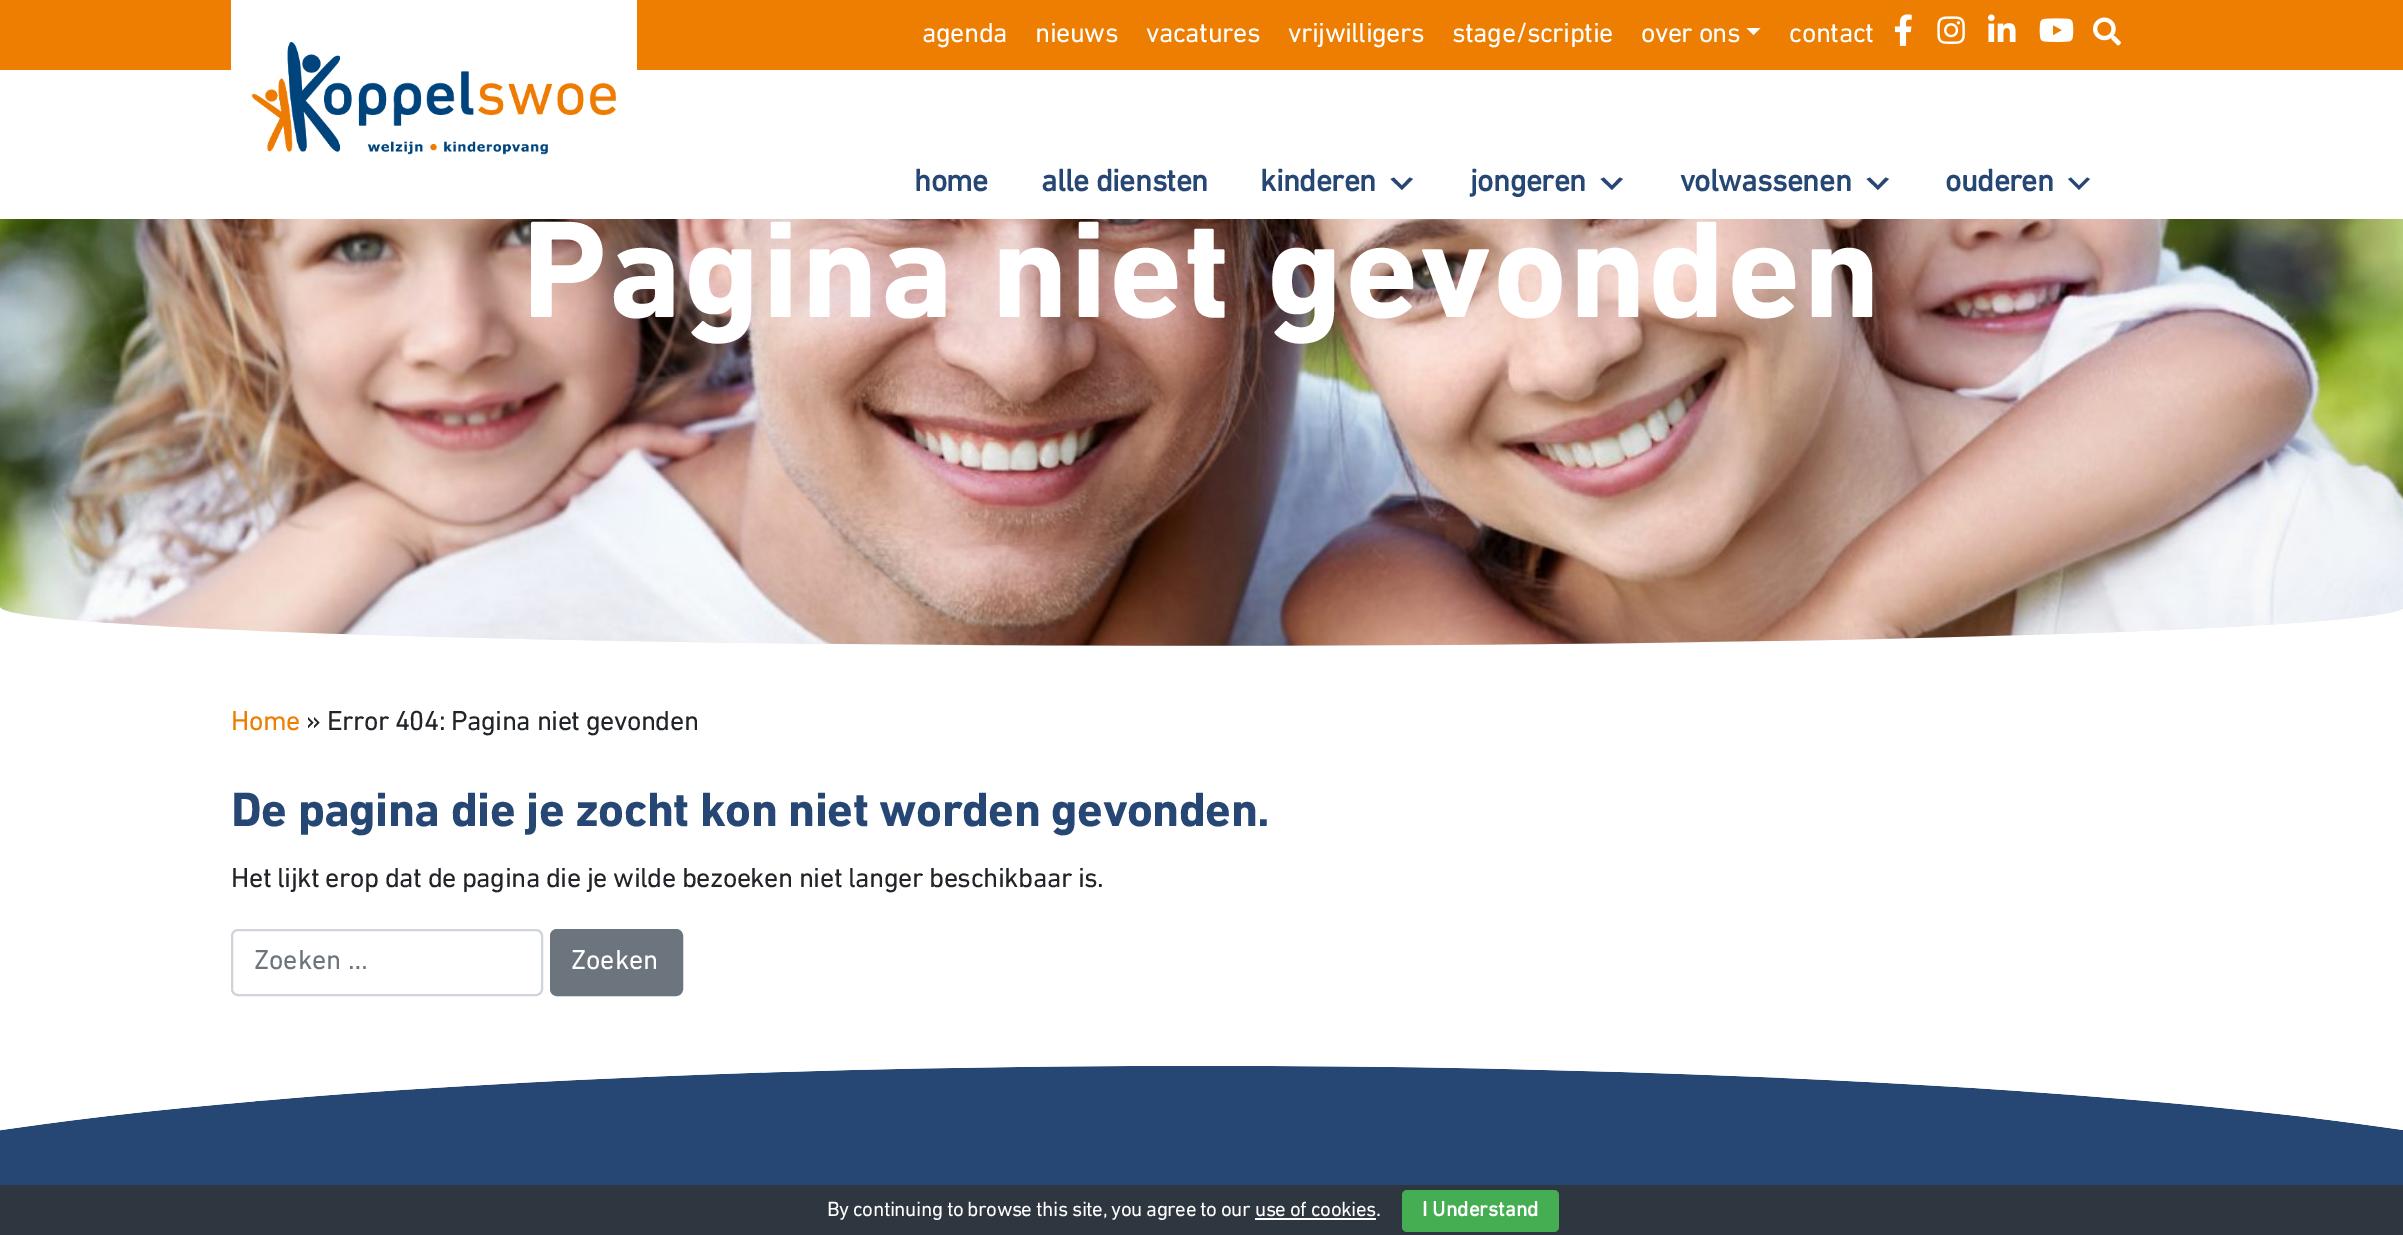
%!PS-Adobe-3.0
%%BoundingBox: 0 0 2403 1235
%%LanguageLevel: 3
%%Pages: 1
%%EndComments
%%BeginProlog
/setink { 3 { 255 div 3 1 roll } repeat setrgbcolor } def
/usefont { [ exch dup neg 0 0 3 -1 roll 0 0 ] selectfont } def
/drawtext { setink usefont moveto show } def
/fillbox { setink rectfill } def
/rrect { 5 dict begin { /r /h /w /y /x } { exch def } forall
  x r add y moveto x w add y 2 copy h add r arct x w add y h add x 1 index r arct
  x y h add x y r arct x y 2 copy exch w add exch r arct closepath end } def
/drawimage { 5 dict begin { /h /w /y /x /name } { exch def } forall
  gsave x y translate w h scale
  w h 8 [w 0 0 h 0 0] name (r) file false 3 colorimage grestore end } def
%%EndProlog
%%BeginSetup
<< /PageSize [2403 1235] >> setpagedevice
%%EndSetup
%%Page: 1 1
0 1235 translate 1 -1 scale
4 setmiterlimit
0 0 2403 1235 255 255 255 fillbox
233 236 239 setink
0 86 moveto 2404 86 lineto 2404 607 lineto 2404 628 1866 646 1202 646 curveto 538 646 0 628 0 607 curveto closepath fill
0 86 2403 133 255 255 255 fillbox
0 0 2403 70 237 126 1 fillbox
231 0 406 70 255 255 255 fillbox
(assets/img1.rgb) 251 42 365 113 drawimage
/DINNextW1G-Regular 28 usefont
922 42 moveto -0.55 0 (agenda) ashow
1035 42 moveto -0.55 0 (nieuws) ashow
1146 42 moveto -0.55 0 (vacatures) ashow
1288 42 moveto -0.55 0 (vrijwilligers) ashow
1452 42 moveto -0.55 0 (stage/scriptie) ashow
1641 42 moveto -0.55 0 (over ons) ashow
1746.5 28 moveto 1760.5 28 lineto 1753.5 35 lineto closepath fill
1789 42 moveto -0.55 0 (contact) ashow
(assets/img2.rgb) 1894 14 18 32 drawimage
(assets/img3.rgb) 1937 16 28 28 drawimage
(assets/img4.rgb) 1988 14 28 28 drawimage
(assets/img5.rgb) 2039 18 35 24 drawimage
(assets/img6.rgb) 2093 17 28 29 drawimage
/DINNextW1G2-Bold 31.5 usefont
38 71 116 setink
914 191 moveto -0.55 0 (home) ashow
1041 191 moveto -0.55 0 (alle diensten) ashow
1260 191 moveto -0.55 0 (kinderen) ashow
1394 177.5 moveto 1402 185.5 lineto 1409.5 177.5 lineto 1413 179 lineto 1402 190 lineto 1390.5 179 lineto closepath fill
1470 191 moveto -0.55 0 (jongeren) ashow
1604 177.5 moveto 1612 185.5 lineto 1619.5 177.5 lineto 1623 179 lineto 1612 190 lineto 1600.5 179 lineto closepath fill
1680 191 moveto -0.55 0 (volwassenen) ashow
1870 177.5 moveto 1878 185.5 lineto 1885.5 177.5 lineto 1889 179 lineto 1878 190 lineto 1866.5 179 lineto closepath fill
1945 191 moveto -0.55 0 (ouderen) ashow
2071 177.5 moveto 2079 185.5 lineto 2087 177.5 lineto 2090 179 lineto 2079 190 lineto 2068 179 lineto closepath fill
(assets/img7.rgb) 0 219 2403 427 drawimage
/DINNextW1G-Bold 140 usefont
255 255 255 setink
522 317 moveto 1.75 0 (Pagina niet gevonden) ashow
/DINNextW1G-Regular 28 usefont
237 126 1 setink
231 730 moveto -0.55 0 (Home) ashow
33 37 41 setink
306 730 moveto -0.55 0 (» Error 404: Pagina niet gevonden) ashow
/DINNextW1G-Bold 49 usefont
38 71 116 setink
231 826 moveto -0.55 0 (De pagina die je zocht kon niet worden gevonden.) ashow
/DINNextW1G-Regular 28 usefont
33 37 41 setink
231 887 moveto -0.55 0 (Het lijkt erop dat de pagina die je wilde bezoeken niet langer beschikbaar is.) ashow
206 212 218 setink
2 setlinewidth
232 930 310 65 6 rrect stroke
(Zoeken …) 254 969 /DINNextW1G-Regular 28 108 117 125 drawtext
551 930 131 65 6 rrect gsave fill grestore
stroke
(Zoeken) 571 969 /DINNextW1G-Regular 28 255 255 255 drawtext
(assets/img8.rgb) 0 1066 2403 119 drawimage
0 1185 2403 50 46 54 63 fillbox
/DINNextW1G-Regular 21 usefont
255 255 255 setink
827 1216 moveto -0.55 0 (By continuing to browse this site, you agree to our use of cookies.) ashow
69 174 82 setink
1402 1190 157 42 5 rrect fill
(I Understand) 1422 1216 /DINNextW1G2-Bold 21 255 255 255 drawtext
1255 1218 121 2 255 255 255 fillbox
showpage
%%EOF
